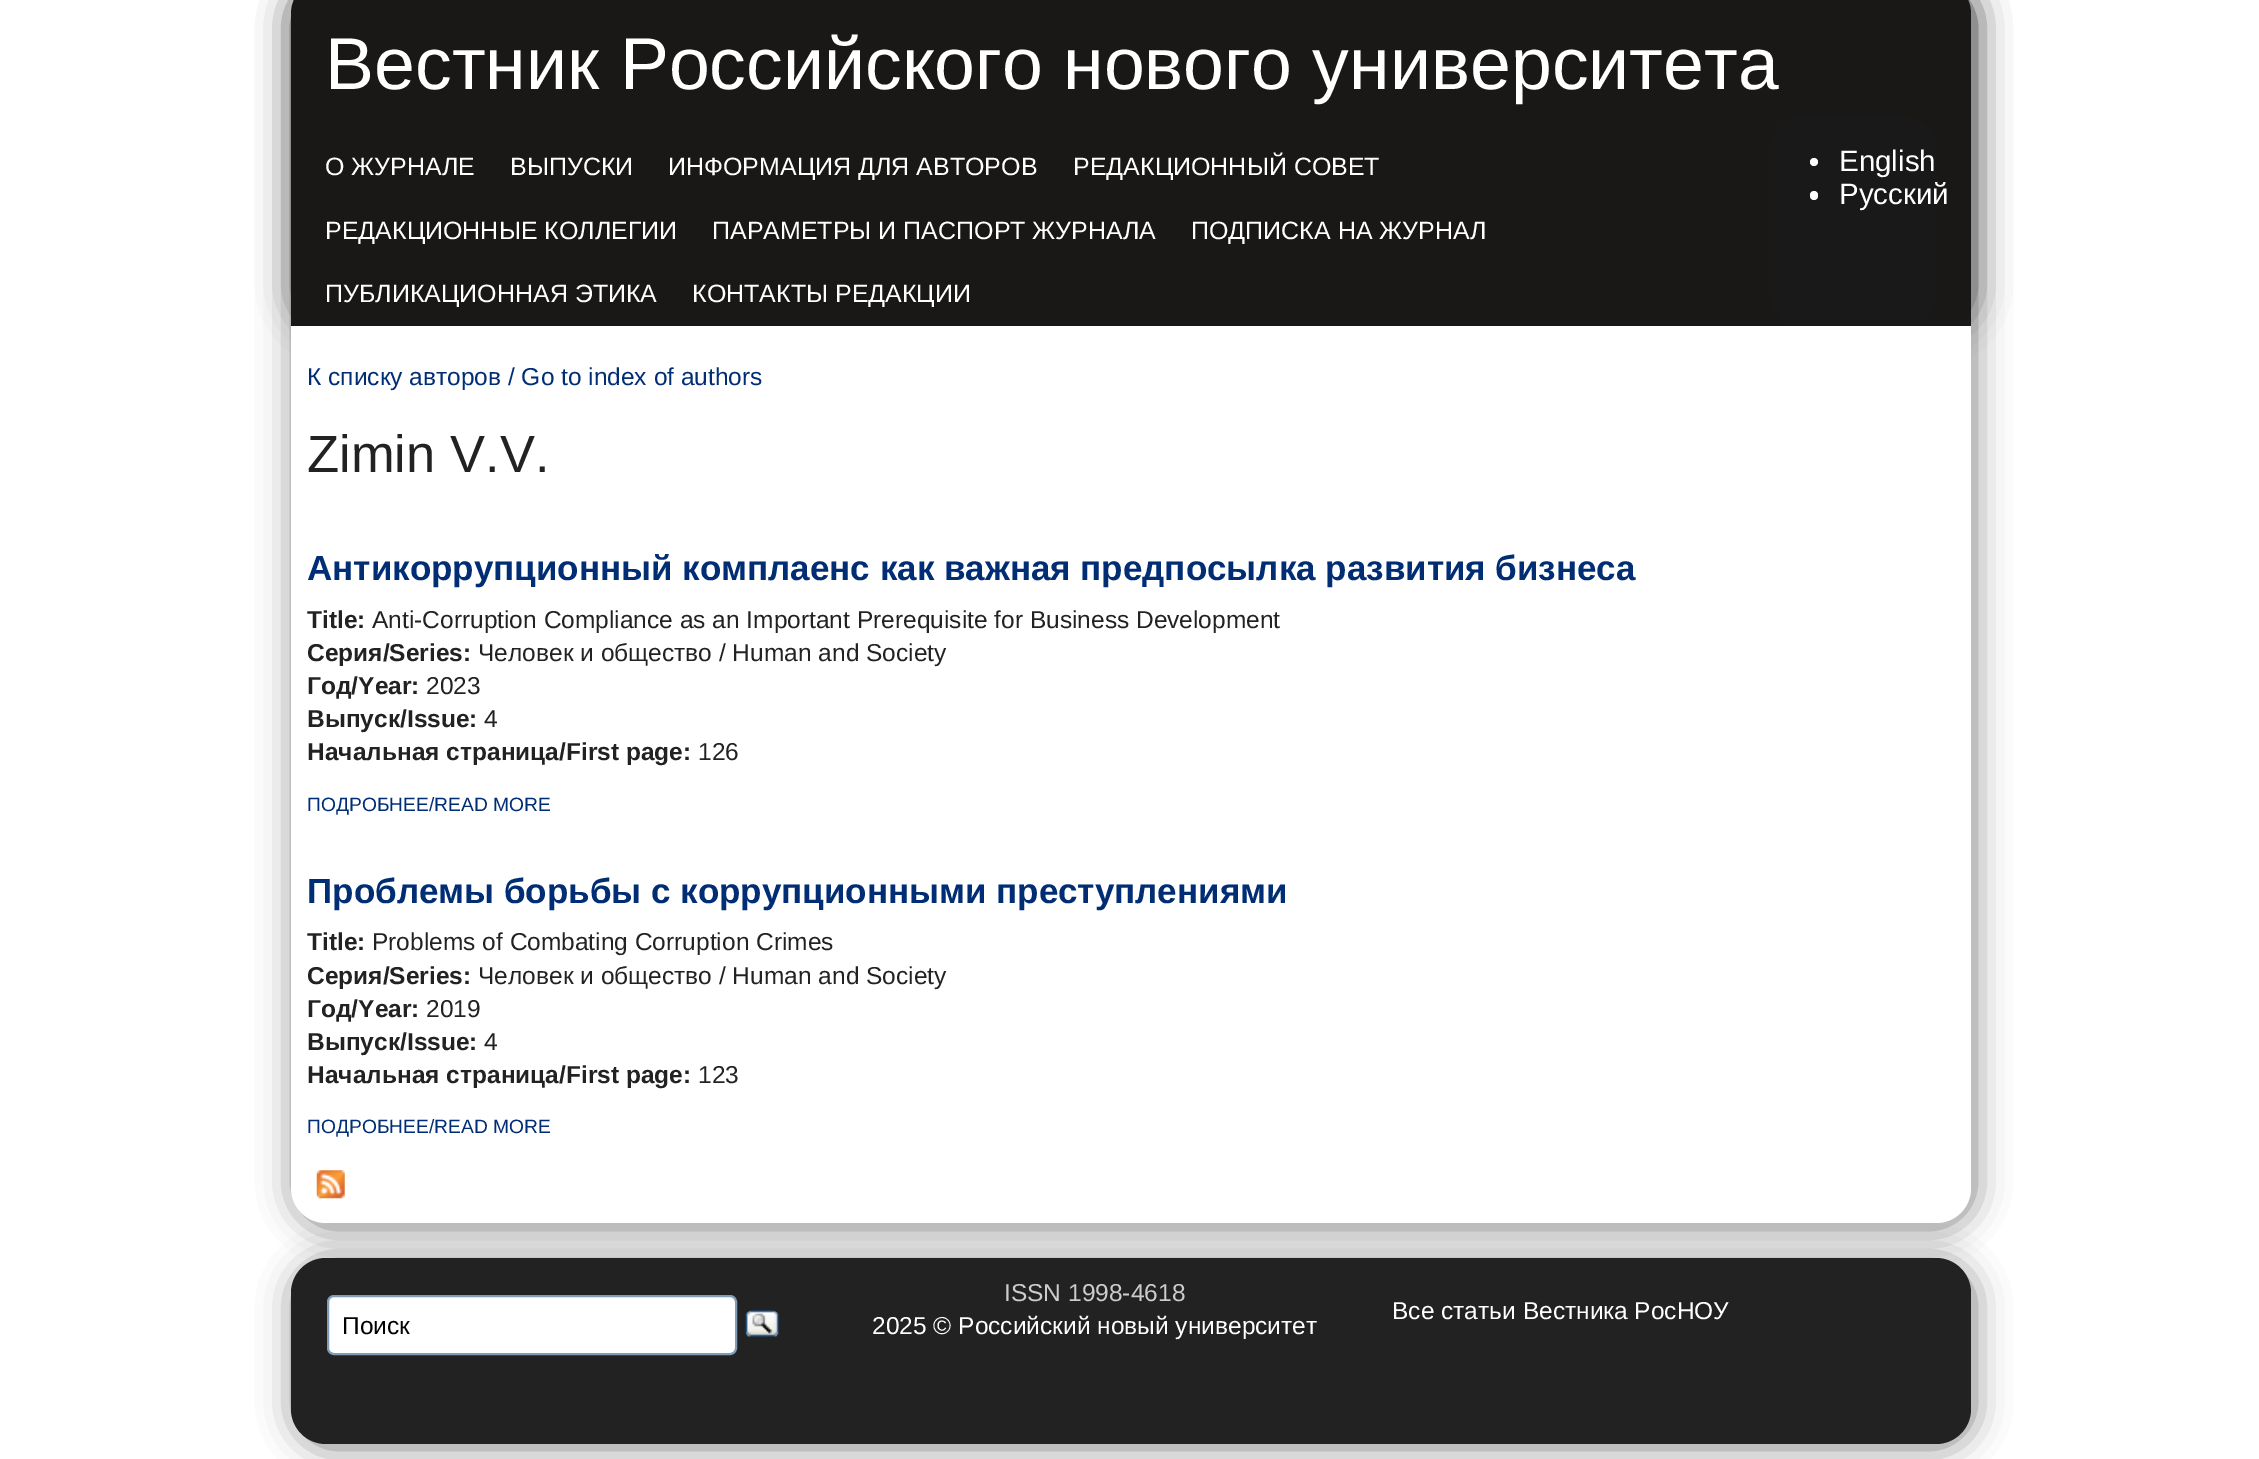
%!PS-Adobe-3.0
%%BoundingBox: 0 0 2259 1459
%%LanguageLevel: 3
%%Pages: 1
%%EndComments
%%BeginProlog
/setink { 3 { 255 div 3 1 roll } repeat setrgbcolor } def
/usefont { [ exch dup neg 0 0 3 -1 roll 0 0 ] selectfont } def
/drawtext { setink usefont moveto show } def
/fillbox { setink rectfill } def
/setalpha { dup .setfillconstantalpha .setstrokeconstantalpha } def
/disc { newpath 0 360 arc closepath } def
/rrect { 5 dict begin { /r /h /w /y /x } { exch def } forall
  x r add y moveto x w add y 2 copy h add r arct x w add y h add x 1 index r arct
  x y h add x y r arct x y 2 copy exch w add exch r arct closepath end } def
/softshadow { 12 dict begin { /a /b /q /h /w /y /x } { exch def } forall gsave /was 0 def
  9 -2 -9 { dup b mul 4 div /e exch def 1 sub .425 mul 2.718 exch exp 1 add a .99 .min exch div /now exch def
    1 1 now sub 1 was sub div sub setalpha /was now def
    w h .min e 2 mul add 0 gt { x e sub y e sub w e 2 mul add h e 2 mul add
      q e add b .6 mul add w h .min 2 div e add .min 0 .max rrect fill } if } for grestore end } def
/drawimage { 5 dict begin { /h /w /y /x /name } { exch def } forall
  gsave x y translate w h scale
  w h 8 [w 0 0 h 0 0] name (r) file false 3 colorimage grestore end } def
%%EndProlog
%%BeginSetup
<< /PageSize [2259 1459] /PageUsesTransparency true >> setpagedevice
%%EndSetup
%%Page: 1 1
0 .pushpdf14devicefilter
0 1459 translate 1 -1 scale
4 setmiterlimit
0 0 2259 1459 255 255 255 fillbox
0 0 0 setink
294 -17 1680 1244 35 17.5 0.5 softshadow
294 -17 1680 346 35 17.5 0.5 softshadow
25 24 22 setink
326 -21 moveto 1936 -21 lineto 1955.5 -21 1971 -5.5 1971 14 curveto 1971 326 lineto 291 326 lineto 291 14 lineto 291 -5.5 306.5 -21 326 -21 curveto closepath fill
(Вестник Российского нового университета) 325 89 /LiberationSans-Regular 73.5 255 255 255 drawtext
(О ЖУРНАЛЕ) 325 175 /LiberationSans-Regular 25 255 255 255 drawtext
(ВЫПУСКИ) 510 175 /LiberationSans-Regular 25 255 255 255 drawtext
(ИНФОРМАЦИЯ ДЛЯ АВТОРОВ) 668 175 /LiberationSans-Regular 25 255 255 255 drawtext
(РЕДАКЦИОННЫЙ СОВЕТ) 1073 175 /LiberationSans-Regular 25 255 255 255 drawtext
(РЕДАКЦИОННЫЕ КОЛЛЕГИИ) 325 239 /LiberationSans-Regular 25 255 255 255 drawtext
(ПАРАМЕТРЫ И ПАСПОРТ ЖУРНАЛА) 712 239 /LiberationSans-Regular 25 255 255 255 drawtext
(ПОДПИСКА НА ЖУРНАЛ) 1191 239 /LiberationSans-Regular 25 255 255 255 drawtext
(ПУБЛИКАЦИОННАЯ ЭТИКА) 325 302 /LiberationSans-Regular 25 255 255 255 drawtext
(КОНТАКТЫ РЕДАКЦИИ) 692 302 /LiberationSans-Regular 25 255 255 255 drawtext
25 25 25 setink
1769 117 168 209 35 rrect fill
255 255 255 setink
1814 162 4 disc fill
(English) 1839 171 /LiberationSans-Regular 29.5 255 255 255 drawtext
1810 191 8 9 4 rrect fill
(Русский) 1839 204 /LiberationSans-Regular 29.5 255 255 255 drawtext
291 326 moveto 1971 326 lineto 1971 1188 lineto 1971 1207.5 1955.5 1223 1936 1223 curveto 326 1223 lineto 306.5 1223 291 1207.5 291 1188 curveto closepath fill
(К списку авторов / Go to index of authors) 307 385 /LiberationSans-Regular 24.5 0 45 116 drawtext
(Zimin V.V.) 307 472 /LiberationSans-Regular 52.5 34 34 34 drawtext
(Антикоррупционный комплаенс как важная предпосылка развития бизнеса) 307 580 /LiberationSans-Bold 35 0 45 116 drawtext
(Title:) 307 628 /LiberationSans-Bold 24.5 34 34 34 drawtext
(Anti-Corruption Compliance as an Important Prerequisite for Business Development) 372 628 /LiberationSans-Regular 24.5 34 34 34 drawtext
(Серия/Series:) 307 661 /LiberationSans-Bold 24.5 34 34 34 drawtext
(Человек и общество / Human and Society) 478 661 /LiberationSans-Regular 24.5 34 34 34 drawtext
(Год/Year:) 307 694 /LiberationSans-Bold 24.5 34 34 34 drawtext
(2023) 426 694 /LiberationSans-Regular 24.5 34 34 34 drawtext
(Выпуск/Issue:) 307 727 /LiberationSans-Bold 24.5 34 34 34 drawtext
(4) 484 727 /LiberationSans-Regular 24.5 34 34 34 drawtext
(Начальная страница/First page:) 307 760 /LiberationSans-Bold 24.5 34 34 34 drawtext
(126) 698 760 /LiberationSans-Regular 24.5 34 34 34 drawtext
(ПОДРОБНЕЕ/READ MORE) 307 811 /LiberationSans-Regular 19.25 0 45 116 drawtext
(Проблемы борьбы с коррупционными преступлениями) 307 903 /LiberationSans-Bold 35 0 45 116 drawtext
(Title:) 307 950 /LiberationSans-Bold 24.5 34 34 34 drawtext
(Problems of Combating Corruption Crimes) 372 950 /LiberationSans-Regular 24.5 34 34 34 drawtext
(Серия/Series:) 307 984 /LiberationSans-Bold 24.5 34 34 34 drawtext
(Человек и общество / Human and Society) 478 984 /LiberationSans-Regular 24.5 34 34 34 drawtext
(Год/Year:) 307 1017 /LiberationSans-Bold 24.5 34 34 34 drawtext
(2019) 426 1017 /LiberationSans-Regular 24.5 34 34 34 drawtext
(Выпуск/Issue:) 307 1050 /LiberationSans-Bold 24.5 34 34 34 drawtext
(4) 484 1050 /LiberationSans-Regular 24.5 34 34 34 drawtext
(Начальная страница/First page:) 307 1083 /LiberationSans-Bold 24.5 34 34 34 drawtext
(123) 698 1083 /LiberationSans-Regular 24.5 34 34 34 drawtext
(ПОДРОБНЕЕ/READ MORE) 307 1133 /LiberationSans-Regular 19.25 0 45 116 drawtext
(assets/img1.rgb) 316 1170 29 29 drawimage
0 0 0 setink
294 1262 1680 185 35 17.5 0.5 softshadow
34 34 34 setink
291 1258 1680 186 35 rrect fill
(ISSN 1998-4618) 1004 1301 /LiberationSans-Regular 24.5 204 204 204 drawtext
(2025 © Российский новый университет) 872 1334 /LiberationSans-Regular 24.5 255 255 255 drawtext
(Все статьи Вестника РосНОУ) 1392 1319 /LiberationSans-Regular 24.5 255 255 255 drawtext
328 1296 408 58 6 rrect gsave fill grestore
127 157 185 setink
2 setlinewidth
stroke
(Поиск) 342 1334 /LiberationSans-Regular 24.5 0 0 0 drawtext
(assets/img2.rgb) 745 1310 34 27 drawimage
.poppdf14devicefilter showpage
%%EOF
